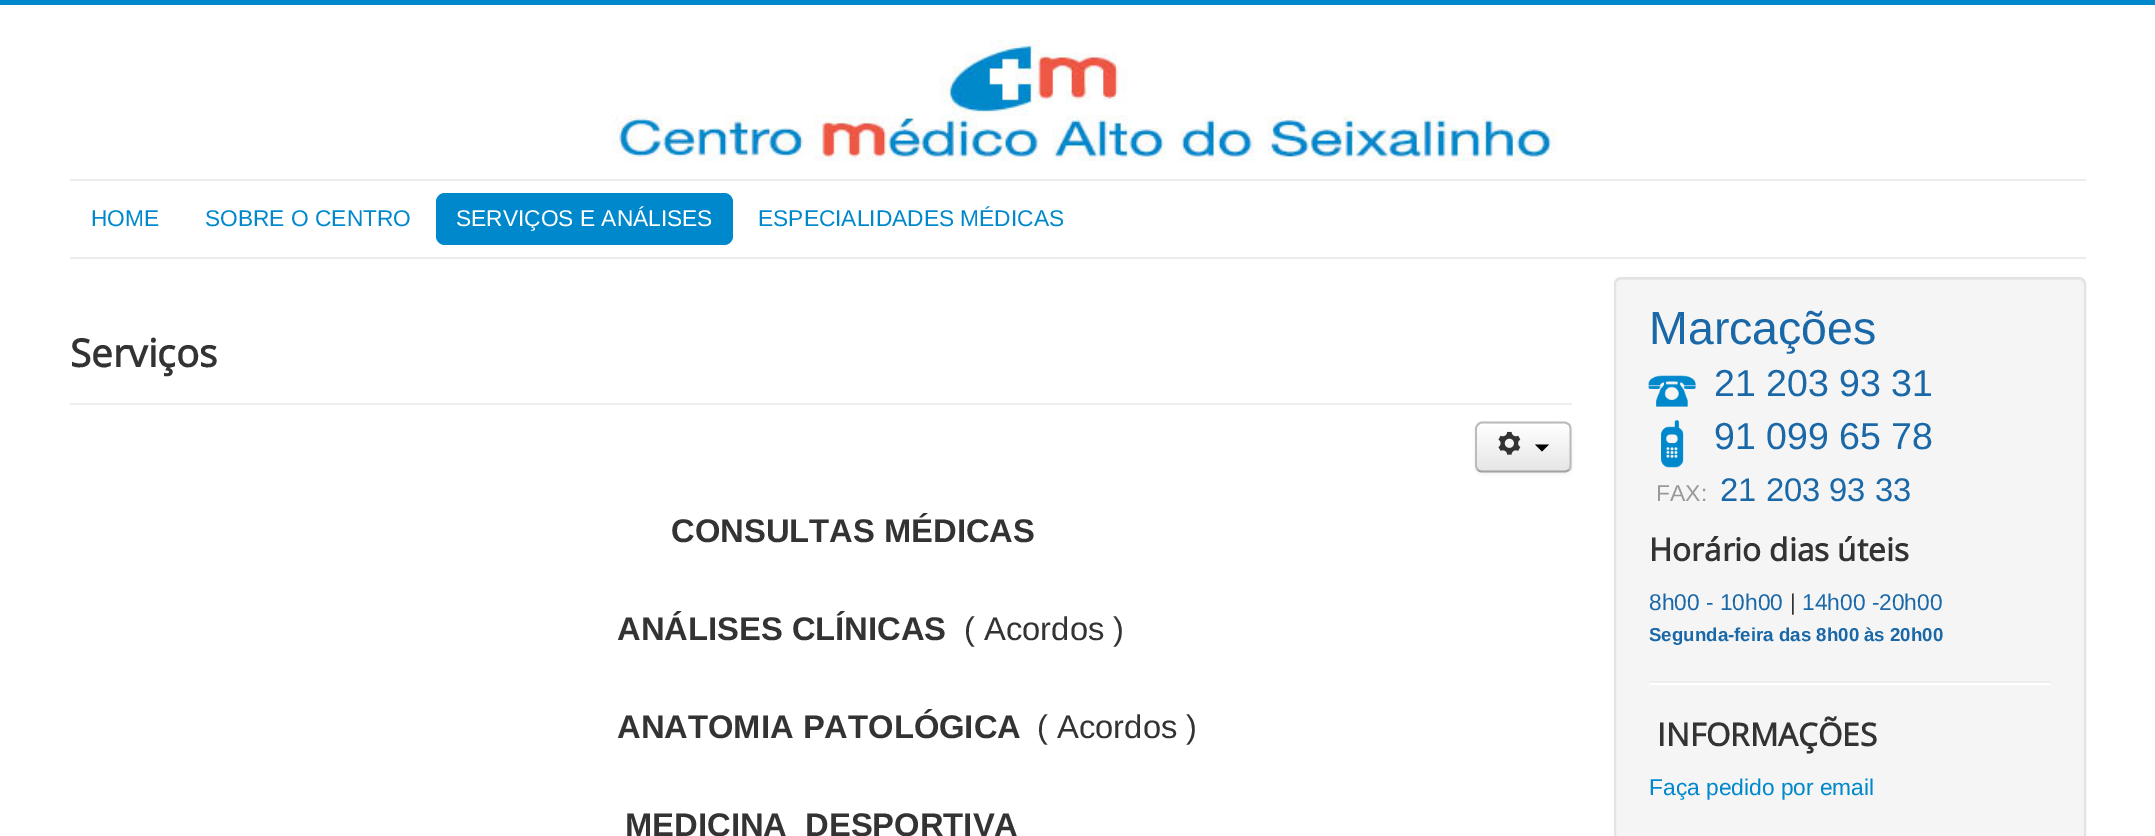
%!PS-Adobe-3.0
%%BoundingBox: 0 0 2155 836
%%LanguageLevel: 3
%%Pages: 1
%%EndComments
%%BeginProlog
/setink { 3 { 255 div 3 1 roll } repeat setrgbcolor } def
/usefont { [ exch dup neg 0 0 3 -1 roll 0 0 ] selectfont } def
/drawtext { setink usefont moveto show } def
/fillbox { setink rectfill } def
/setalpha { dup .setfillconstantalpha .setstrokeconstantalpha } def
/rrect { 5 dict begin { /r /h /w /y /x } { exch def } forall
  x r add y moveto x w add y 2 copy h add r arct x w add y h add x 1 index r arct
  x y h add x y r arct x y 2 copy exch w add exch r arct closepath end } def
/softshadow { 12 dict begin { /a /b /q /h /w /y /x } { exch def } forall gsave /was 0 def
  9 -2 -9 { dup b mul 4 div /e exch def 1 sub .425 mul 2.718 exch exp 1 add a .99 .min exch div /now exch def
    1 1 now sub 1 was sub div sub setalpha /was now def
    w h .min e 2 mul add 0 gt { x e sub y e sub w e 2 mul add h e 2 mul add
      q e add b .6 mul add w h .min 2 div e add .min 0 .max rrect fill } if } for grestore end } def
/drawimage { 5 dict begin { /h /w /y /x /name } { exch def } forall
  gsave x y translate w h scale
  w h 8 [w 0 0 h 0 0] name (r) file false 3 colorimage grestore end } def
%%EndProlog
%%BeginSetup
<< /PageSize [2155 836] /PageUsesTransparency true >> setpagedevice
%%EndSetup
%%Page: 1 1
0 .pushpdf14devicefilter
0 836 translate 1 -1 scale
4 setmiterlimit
0 0 2155 836 255 255 255 fillbox
0 0 2155 5 0 136 204 fillbox
(assets/img1.rgb) 612 40 945 121 drawimage
70 179 2016 2 236 236 236 fillbox
70 257 2016 2 236 236 236 fillbox
(HOME) 91 226 /LiberationSans-Regular 22.75 0 136 204 drawtext
(SOBRE O CENTRO) 205 226 /LiberationSans-Regular 22.75 0 136 204 drawtext
436 193 297 52 9 rrect fill
(SERVIÇOS E ANÁLISES) 456 226 /LiberationSans-Regular 22.75 255 255 255 drawtext
(ESPECIALIDADES MÉDICAS) 758 226 /LiberationSans-Regular 22.75 0 136 204 drawtext
70 403 1502 2 238 238 238 fillbox
(Serviços) 70 367 /OpenSans-Bold 38.5 51 51 51 drawtext
0 0 0 setink
1475 424 97 50 7 2 0.05 softshadow
245 245 245 setink
1475 422 97 51 7 rrect fill
gsave
1475 422 97 51 7 rrect clip newpath
gsave 1475 424 moveto 1572 424 lineto 1572 471 lineto 1475 471 lineto closepath clip newpath
<< /ShadingType 2 /ColorSpace /DeviceRGB /Coords [1523 424 1523 471] /Extend [true true] /Function << /FunctionType 2 /Domain [0 1] /C0 [1 1 1] /C1 [0.902 0.902 0.902] /N 1 >> >> shfill grestore
grestore
255 255 255 setink
1482 425 moveto 1564 425 lineto 1567 425 1570 428 1570 430 curveto 1570 421 1557 424 1551 424 curveto 1496 424 lineto 1490 424 1477 421 1477 430 curveto 1477 428 1479 425 1482 425 curveto closepath fill
162 162 162 setink
1.8 setlinewidth
1569 470 moveto 1567.5 471 1566 471.5 1564.5 471.5 curveto 1482 471.5 lineto 1480.5 471.5 1479 471 1478 470 curveto stroke
187 187 187 setink
1478 470 moveto 1477 468.5 1476 467 1476 465.5 curveto 1476 429 lineto 1476 427 1477 425.5 1478 424.5 curveto 1479 423.5 1480.5 422.5 1482 422.5 curveto 1564.5 422.5 lineto 1566 422.5 1567.5 423.5 1569 424.5 curveto 1570 425.5 1570.5 427 1570.5 429 curveto 1570.5 465.5 lineto 1570.5 467 1570 468.5 1569 470 curveto stroke
(assets/img2.rgb) 1498 431 23 24 drawimage
0 0 0 setink
1535 444.5 moveto 1549 444.5 lineto 1542 451.5 lineto closepath fill
(CONSULTAS MÉDICAS) 671 542 /LiberationSans-Bold 32.75 51 51 51 drawtext
(ANÁLISES CLÍNICAS) 617 640 /LiberationSans-Bold 32.75 51 51 51 drawtext
(\( Acordos \)) 964 640 /LiberationSans-Regular 32.75 51 51 51 drawtext
(ANATOMIA PATOLÓGICA) 617 738 /LiberationSans-Bold 32.75 51 51 51 drawtext
(\( Acordos \)) 1037 738 /LiberationSans-Regular 32.75 51 51 51 drawtext
(MEDICINA  DESPORTIVA) 625 836 /LiberationSans-Bold 32.75 51 51 51 drawtext
245 245 245 setink
1614 277 472 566 7 rrect fill
233 233 233 setink
1620 280 moveto 2079 280 lineto 2082 280 2084 282 2084 285 curveto 2084 283 lineto 2084 280 2082 278 2079 278 curveto 1620 278 lineto 1617 278 1615 280 1615 283 curveto 1615 285 lineto 1615 282 1618 280 1620 280 curveto closepath fill
227 227 227 setink
2 setlinewidth
1615 278 470 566 6 rrect stroke
(Marcações) 1649 344 /LiberationSans-Regular 46.5 26 104 168 drawtext
(assets/img3.rgb) 1648 375 48 32 drawimage
(21 203 93 31) 1714 396 /LiberationSans-Regular 37.5 26 104 168 drawtext
(assets/img4.rgb) 1661 420 23 48 drawimage
(91 099 65 78) 1714 449 /LiberationSans-Regular 37.5 26 104 168 drawtext
(FAX:) 1656 501 /LiberationSans-Regular 23 153 153 153 drawtext
(21 203 93 33) 1720 501 /LiberationSans-Regular 32.75 26 104 168 drawtext
(Horário dias úteis) 1649 561 /OpenSans-Bold 31.5 51 51 51 drawtext
(8h00 - 10h00) 1649 610 /LiberationSans-Regular 22.75 26 104 168 drawtext
(|) 1790 610 /LiberationSans-Regular 22.75 51 51 51 drawtext
(14h00 -20h00) 1802 610 /LiberationSans-Regular 22.75 26 104 168 drawtext
(Segunda-feira das 8h00 às 20h00) 1649 641 /LiberationSans-Bold 18.7 26 104 168 drawtext
1649 681 402 2 238 238 238 fillbox
1649 683 402 2 255 255 255 fillbox
(INFORMAÇÕES) 1657 746 /OpenSans-Bold 31.5 51 51 51 drawtext
(Faça pedido por email) 1649 795 /LiberationSans-Regular 22.75 0 136 204 drawtext
.poppdf14devicefilter showpage
%%EOF
